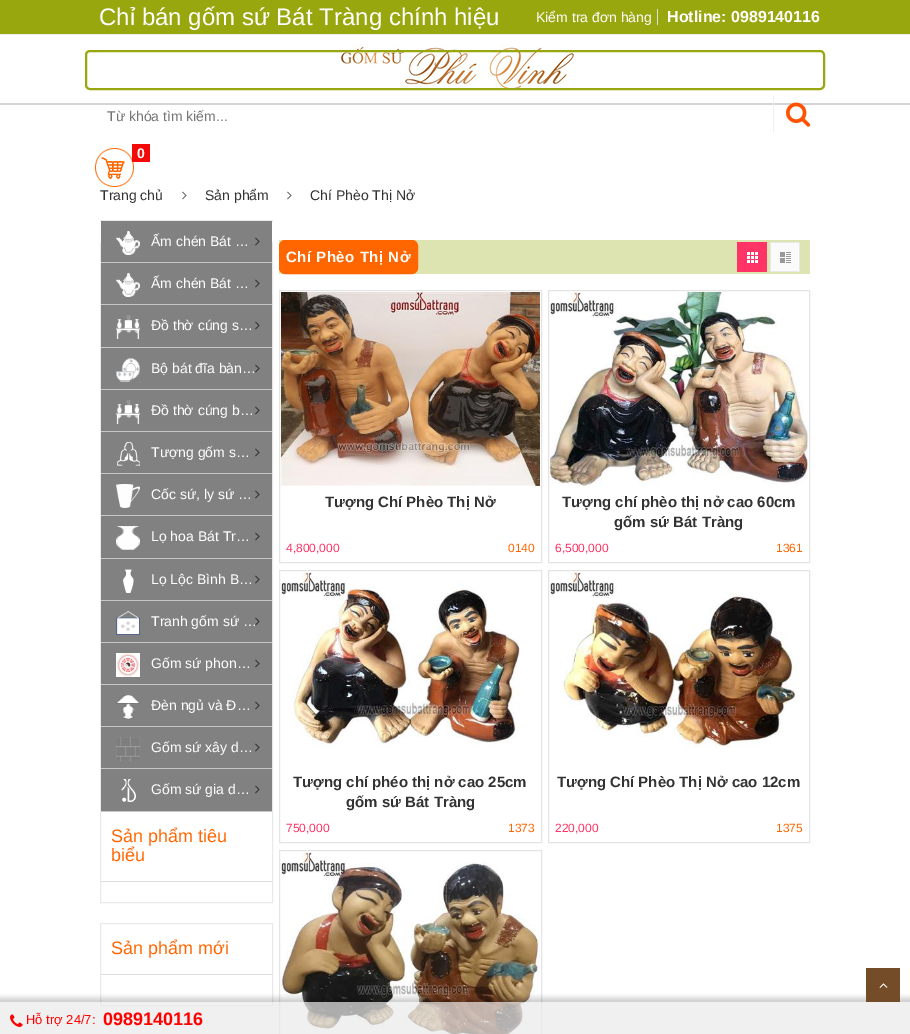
%!PS-Adobe-3.0
%%BoundingBox: 0 0 910 1034
%%LanguageLevel: 3
%%Pages: 1
%%EndComments
%%BeginProlog
/setink { 3 { 255 div 3 1 roll } repeat setrgbcolor } def
/usefont { [ exch dup neg 0 0 3 -1 roll 0 0 ] selectfont } def
/drawtext { setink usefont moveto show } def
/fillbox { setink rectfill } def
/setalpha { dup .setfillconstantalpha .setstrokeconstantalpha } def
/rrect { 5 dict begin { /r /h /w /y /x } { exch def } forall
  x r add y moveto x w add y 2 copy h add r arct x w add y h add x 1 index r arct
  x y h add x y r arct x y 2 copy exch w add exch r arct closepath end } def
/softshadow { 12 dict begin { /a /b /q /h /w /y /x } { exch def } forall gsave /was 0 def
  9 -2 -9 { dup b mul 4 div /e exch def 1 sub .425 mul 2.718 exch exp 1 add a .99 .min exch div /now exch def
    1 1 now sub 1 was sub div sub setalpha /was now def
    w h .min e 2 mul add 0 gt { x e sub y e sub w e 2 mul add h e 2 mul add
      q e add b .6 mul add w h .min 2 div e add .min 0 .max rrect fill } if } for grestore end } def
/drawimage { 5 dict begin { /h /w /y /x /name } { exch def } forall
  gsave x y translate w h scale
  w h 8 [w 0 0 h 0 0] name (r) file false 3 colorimage grestore end } def
%%EndProlog
%%BeginSetup
<< /PageSize [910 1034] /PageUsesTransparency true >> setpagedevice
%%EndSetup
%%Page: 1 1
0 .pushpdf14devicefilter
0 1034 translate 1 -1 scale
4 setmiterlimit
0 0 910 1034 255 255 255 fillbox
0 0 910 34 152 167 14 fillbox
0 34 910 1 238 238 238 fillbox
(Chỉ bán gốm sứ Bát Tràng chính hiệu) 99 25 /LiberationSans-Regular 24 255 255 255 drawtext
(Kiểm tra đơn hàng) 536 22 /LiberationSans-Regular 14 255 255 255 drawtext
657 9 1 16 224 224 224 fillbox
(Hotline: 0989140116) 667 22 /LiberationSans-Bold 16 255 255 255 drawtext
0 103 910 2 212 212 212 fillbox
(assets/img1.rgb) 341 46 233 46 drawimage
152 167 14 setink
2 setlinewidth
86 51 738 38 4 rrect stroke
(Từ khóa tìm kiếm...) 107 121 /LiberationSans-Regular 14 117 117 117 drawtext
773 96 1 36 239 239 239 fillbox
(assets/img2.rgb) 786 102 25 25 drawimage
(assets/img3.rgb) 95 148 39 39 drawimage
132 144 18 18 245 8 8 fillbox
(0) 137 158 /LiberationSans-Bold 14 255 255 255 drawtext
(Trang chủ) 100 200 /LiberationSans-Regular 14 51 51 51 drawtext
(assets/img4.rgb) 182 191 5 9 drawimage
(Sản phẩm) 205 200 /LiberationSans-Regular 14 51 51 51 drawtext
(assets/img4.rgb) 287 191 5 9 drawimage
(Chí Phèo Thị Nở) 310 200 /LiberationSans-Regular 14 51 51 51 drawtext
100 220 173 2 234 234 234 fillbox
1 setlinewidth
100.5 242.5 172 660 rectstroke
101 221 171 41 130 129 129 fillbox
101 262 171 1 199 199 199 fillbox
(assets/img5.rgb) 116 231 24 24 drawimage
(Ấm chén Bát …) 151 246 /LiberationSans-Regular 14 255 255 255 drawtext
(assets/img6.rgb) 255 237 5 9 drawimage
101 263 171 41 130 129 129 fillbox
101 304 171 1 199 199 199 fillbox
(assets/img7.rgb) 116 273 24 24 drawimage
(Ấm chén Bát …) 151 288 /LiberationSans-Regular 14 255 255 255 drawtext
(assets/img6.rgb) 255 279 5 9 drawimage
101 305 171 42 130 129 129 fillbox
101 347 171 1 199 199 199 fillbox
(assets/img8.rgb) 116 315 24 24 drawimage
(Đồ thờ cúng s…) 151 330 /LiberationSans-Regular 14 255 255 255 drawtext
(assets/img6.rgb) 255 321 5 9 drawimage
101 348 171 41 130 129 129 fillbox
101 389 171 1 199 199 199 fillbox
(assets/img9.rgb) 116 358 24 24 drawimage
(Bộ bát đĩa bàn…) 151 373 /LiberationSans-Regular 14 255 255 255 drawtext
(assets/img6.rgb) 255 364 5 9 drawimage
101 390 171 41 130 129 129 fillbox
101 431 171 1 199 199 199 fillbox
(assets/img8.rgb) 116 400 24 24 drawimage
(Đồ thờ cúng b…) 151 415 /LiberationSans-Regular 14 255 255 255 drawtext
(assets/img6.rgb) 255 406 5 9 drawimage
101 432 171 41 130 129 129 fillbox
101 473 171 1 199 199 199 fillbox
(assets/img10.rgb) 117 442 23 24 drawimage
(Tượng gốm s…) 151 457 /LiberationSans-Regular 14 255 255 255 drawtext
(assets/img6.rgb) 255 448 5 9 drawimage
101 474 171 41 130 129 129 fillbox
101 515 171 1 199 199 199 fillbox
(assets/img11.rgb) 116 484 24 24 drawimage
(Cốc sứ, ly sứ …) 151 499 /LiberationSans-Regular 14 255 255 255 drawtext
(assets/img6.rgb) 255 490 5 9 drawimage
101 516 171 42 130 129 129 fillbox
101 558 171 1 199 199 199 fillbox
(assets/img12.rgb) 116 526 24 24 drawimage
(Lọ hoa Bát Tr…) 151 541 /LiberationSans-Regular 14 255 255 255 drawtext
(assets/img6.rgb) 255 532 5 9 drawimage
101 559 171 41 130 129 129 fillbox
101 600 171 1 199 199 199 fillbox
(assets/img13.rgb) 123 569 11 24 drawimage
(Lọ Lộc Bình B…) 151 584 /LiberationSans-Regular 14 255 255 255 drawtext
(assets/img6.rgb) 255 575 5 9 drawimage
101 601 171 41 130 129 129 fillbox
101 642 171 1 199 199 199 fillbox
(assets/img14.rgb) 116 611 24 24 drawimage
(Tranh gốm sứ …) 151 626 /LiberationSans-Regular 14 255 255 255 drawtext
(assets/img6.rgb) 255 617 5 9 drawimage
101 643 171 41 130 129 129 fillbox
101 684 171 1 199 199 199 fillbox
(assets/img15.rgb) 116 653 24 24 drawimage
(Gốm sứ phon…) 151 668 /LiberationSans-Regular 14 255 255 255 drawtext
(assets/img6.rgb) 255 659 5 9 drawimage
101 685 171 41 130 129 129 fillbox
101 726 171 1 199 199 199 fillbox
(assets/img16.rgb) 116 695 24 24 drawimage
(Đèn ngủ và Đ…) 151 710 /LiberationSans-Regular 14 255 255 255 drawtext
(assets/img6.rgb) 255 701 5 9 drawimage
101 727 171 41 130 129 129 fillbox
101 768 171 1 199 199 199 fillbox
(assets/img17.rgb) 116 737 24 24 drawimage
(Gốm sứ xây d…) 151 752 /LiberationSans-Regular 14 255 255 255 drawtext
(assets/img6.rgb) 255 743 5 9 drawimage
101 769 171 42 130 129 129 fillbox
101 811 171 1 199 199 199 fillbox
(assets/img18.rgb) 121 779 15 23 drawimage
(Gốm sứ gia d…) 151 794 /LiberationSans-Regular 14 255 255 255 drawtext
(assets/img6.rgb) 255 785 5 9 drawimage
101 881 171 1 221 221 221 fillbox
(Sản phẩm tiêu) 111 842 /LiberationSans-Regular 18 255 102 0 drawtext
(biểu) 111 861 /LiberationSans-Regular 18 255 102 0 drawtext
234 234 234 setink
100.5 923.5 172 82 rectstroke
101 974 171 1 221 221 221 fillbox
(Sản phẩm mới) 111 954 /LiberationSans-Regular 18 255 102 0 drawtext
279 240 531 34 222 227 178 fillbox
255 102 0 setink
279.5 240.5 138 33 5.5 rrect gsave fill grestore
stroke
/LiberationSans-Bold 15 usefont
255 255 255 setink
286 262 moveto 0.5 0 (Chí Phèo Thị Nở) ashow
737 242 30 30 255 51 102 fillbox
(assets/img19.rgb) 747 252 11 11 drawimage
(assets/img20.rgb) 770 242 30 30 drawimage
228 228 228 setink
279.5 290.5 262 272 rectstroke
(assets/img21.rgb) 281 292 259 194 drawimage
(Tượng Chí Phèo Thị Nở) 325 507 /LiberationSans-Bold 15 51 51 51 drawtext
(4,800,000) 286 552 /LiberationSans-Regular 12 255 51 102 drawtext
(0140) 508 552 /LiberationSans-Regular 12 255 102 0 drawtext
228 228 228 setink
548.5 290.5 261 272 rectstroke
(assets/img22.rgb) 550 292 258 194 drawimage
(Tượng chí phèo thị nở cao 60cm) 562 507 /LiberationSans-Bold 15 51 51 51 drawtext
(gốm sứ Bát Tràng) 614 527 /LiberationSans-Bold 15 51 51 51 drawtext
(6,500,000) 555 552 /LiberationSans-Regular 12 255 51 102 drawtext
(1361) 776 552 /LiberationSans-Regular 12 255 102 0 drawtext
228 228 228 setink
279.5 570.5 262 272 rectstroke
(assets/img23.rgb) 281 572 239 176 drawimage
(Tượng chí phéo thị nở cao 25cm) 293 787 /LiberationSans-Bold 15 51 51 51 drawtext
(gốm sứ Bát Tràng) 346 807 /LiberationSans-Bold 15 51 51 51 drawtext
(750,000) 286 832 /LiberationSans-Regular 12 255 51 102 drawtext
(1373) 508 832 /LiberationSans-Regular 12 255 102 0 drawtext
228 228 228 setink
548.5 570.5 261 272 rectstroke
(assets/img24.rgb) 550 572 248 176 drawimage
(Tượng Chí Phèo Thị Nở cao 12cm) 557 787 /LiberationSans-Bold 15 51 51 51 drawtext
(220,000) 555 832 /LiberationSans-Regular 12 255 51 102 drawtext
(1375) 776 832 /LiberationSans-Regular 12 255 102 0 drawtext
228 228 228 setink
279.5 850.5 262 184 rectstroke
(assets/img25.rgb) 281 852 259 182 drawimage
gsave
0 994 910 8 rectclip
0 0 0 setink
-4 998 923 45 0 3 0.2 softshadow
grestore
0.7 setalpha
0 1002 910 32 234 234 234 fillbox
1 setalpha
(assets/img26.rgb) 10 1014 13 13 drawimage
(Hỗ trợ 24/7:) 26 1024 /LiberationSans-Regular 13 255 0 0 drawtext
(0989140116) 103 1025 /LiberationSans-Bold 18 255 0 0 drawtext
866 968 34 34 117 76 40 fillbox
(assets/img27.rgb) 879 983 9 5 drawimage
.poppdf14devicefilter showpage
%%EOF
